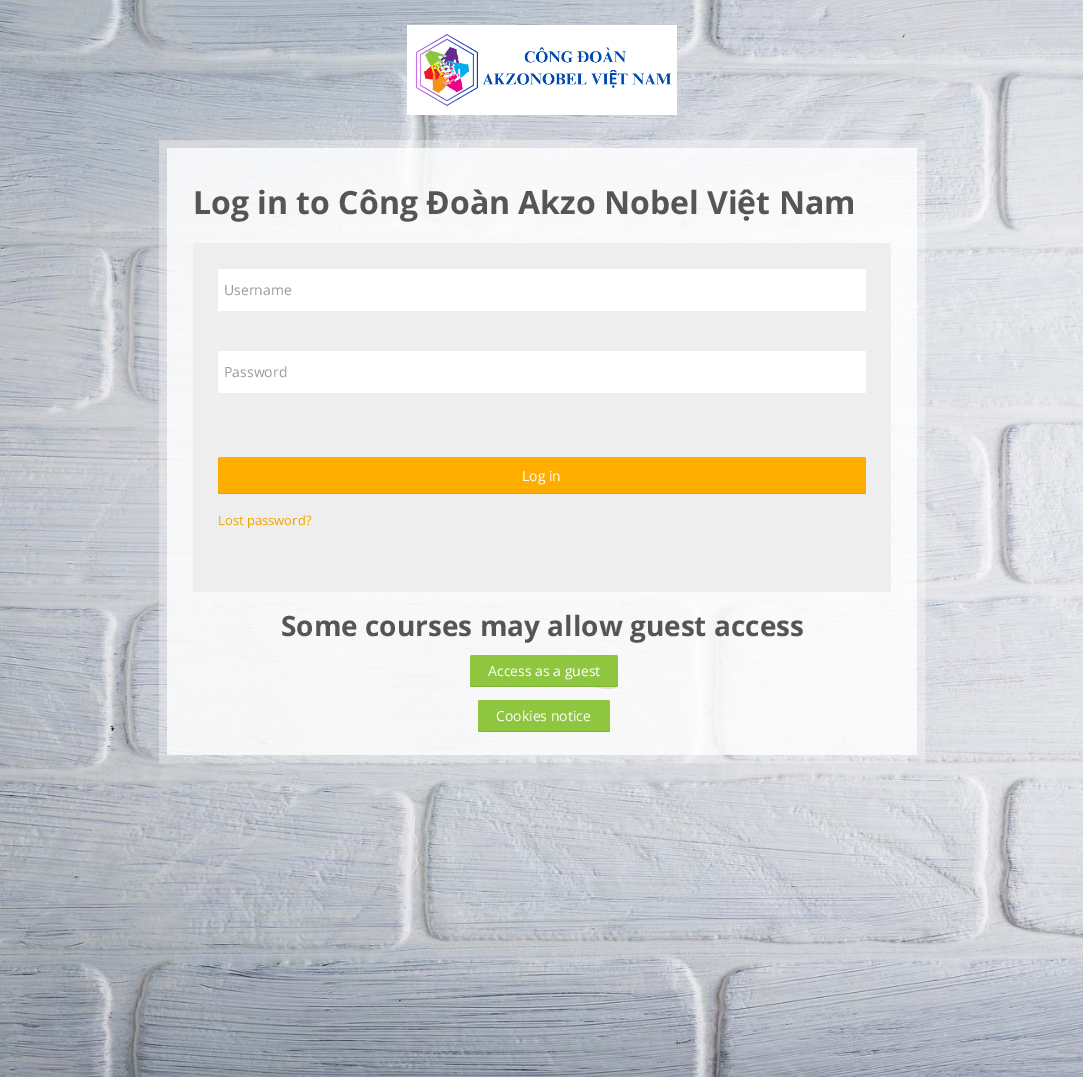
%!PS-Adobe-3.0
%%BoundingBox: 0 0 1083 1077
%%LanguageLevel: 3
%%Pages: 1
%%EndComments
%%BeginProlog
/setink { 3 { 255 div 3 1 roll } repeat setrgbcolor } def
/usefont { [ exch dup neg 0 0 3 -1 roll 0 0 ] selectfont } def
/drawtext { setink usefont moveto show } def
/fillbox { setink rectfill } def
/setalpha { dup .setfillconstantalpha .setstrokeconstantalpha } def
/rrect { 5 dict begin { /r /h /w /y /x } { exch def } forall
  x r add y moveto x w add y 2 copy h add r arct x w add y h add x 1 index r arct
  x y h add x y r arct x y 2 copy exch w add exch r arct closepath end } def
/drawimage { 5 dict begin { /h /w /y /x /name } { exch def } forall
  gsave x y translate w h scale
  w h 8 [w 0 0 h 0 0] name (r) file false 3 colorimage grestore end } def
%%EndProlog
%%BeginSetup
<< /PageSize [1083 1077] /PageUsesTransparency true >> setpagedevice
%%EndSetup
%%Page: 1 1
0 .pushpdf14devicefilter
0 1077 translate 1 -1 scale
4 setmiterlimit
0 0 1083 1077 255 255 255 fillbox
(assets/img1.rgb) 0 0 1083 1077 drawimage
(assets/img2.rgb) 407 25 270 90 drawimage
0.85 setalpha
167 148 750 607 255 255 255 fillbox
0.35 setalpha
8 setlinewidth
163 144 moveto 921 144 lineto 921 759 lineto 163 759 lineto closepath stroke
1 setalpha
(Log in to Công Đoàn Akzo Nobel Việt Nam) 193 214 /OpenSans-Bold 32 85 85 85 drawtext
193 243 698 349 238 238 238 fillbox
218 269 648 42 255 255 255 fillbox
(Username) 224 295 /OpenSans-Regular 14 153 153 153 drawtext
218 351 648 42 255 255 255 fillbox
(Password) 224 377 /OpenSans-Regular 14 153 153 153 drawtext
255 174 0 setink
218 457 648 37 2 rrect fill
0.1 setalpha
0 0 0 setink
218 491 moveto 218 492 218 494 220 494 curveto 864 494 lineto 866 494 866 492 866 491 curveto 866 492 865 493 864 493 curveto 220 493 lineto 219 493 218 492 218 491 curveto closepath fill
1 setalpha
(Log in) 522 481 /OpenSans-Regular 14 255 255 255 drawtext
(Lost password?) 218 525 /OpenSans-Regular 13 239 163 0 drawtext
(Some courses may allow guest access) 281 636 /OpenSans-Bold 28 85 85 85 drawtext
142 198 63 setink
470 655 148 32 2 rrect fill
0.1 setalpha
0 0 0 setink
470 684 moveto 470 685 470 686 471 687 curveto 592 687 lineto 595 687 618 693 618 684 curveto 618 685 617 686 616 686 curveto 472 686 lineto 471 686 470 685 470 684 curveto closepath fill
1 setalpha
(Access as a guest) 488 676 /OpenSans-Regular 14 255 255 255 drawtext
142 198 63 setink
478 700 132 32 2 rrect fill
0.1 setalpha
0 0 0 setink
478 729 moveto 478 730 478 732 480 732 curveto 608 732 lineto 610 732 610 730 610 729 curveto 610 730 609 731 608 731 curveto 480 731 lineto 479 731 478 730 478 729 curveto closepath fill
1 setalpha
(Cookies notice) 496 721 /OpenSans-Regular 14 255 255 255 drawtext
.poppdf14devicefilter showpage
%%EOF
